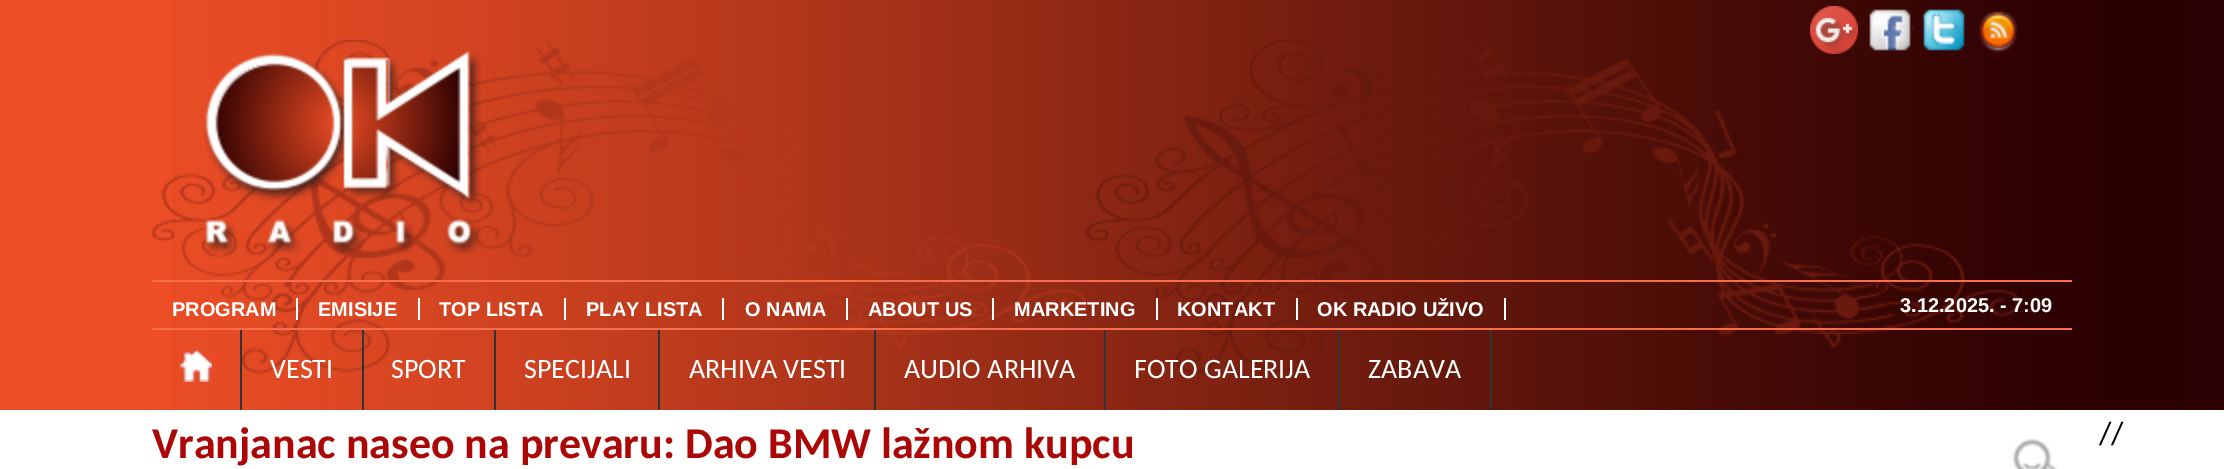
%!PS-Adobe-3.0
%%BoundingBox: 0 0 2224 469
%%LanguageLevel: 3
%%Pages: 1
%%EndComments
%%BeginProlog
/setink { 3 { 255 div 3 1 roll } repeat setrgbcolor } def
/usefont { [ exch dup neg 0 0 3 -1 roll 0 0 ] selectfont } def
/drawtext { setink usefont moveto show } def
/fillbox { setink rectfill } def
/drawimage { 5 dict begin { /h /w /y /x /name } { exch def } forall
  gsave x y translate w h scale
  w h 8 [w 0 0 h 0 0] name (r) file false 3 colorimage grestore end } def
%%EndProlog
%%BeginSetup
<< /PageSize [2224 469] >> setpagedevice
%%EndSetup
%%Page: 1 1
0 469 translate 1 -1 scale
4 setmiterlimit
0 0 2224 469 255 255 255 fillbox
0 0 173 410 237 78 38 fillbox
(assets/img1.rgb) 173 0 2051 410 drawimage
(assets/img2.rgb) 152 40 1869 334 drawimage
(assets/img3.rgb) 1810 6 48 48 drawimage
(assets/img4.rgb) 1869 9 45 42 drawimage
(assets/img5.rgb) 1922 9 46 42 drawimage
(assets/img6.rgb) 1978 11 41 43 drawimage
(assets/img7.rgb) 203 51 279 203 drawimage
152 280 1920 2 245 111 78 fillbox
152 328 1920 2 245 111 78 fillbox
(PROGRAM) 172 316 /LiberationSans-Bold 20 255 255 255 drawtext
296 298 2 22 255 255 255 fillbox
(EMISIJE) 318 316 /LiberationSans-Bold 20 255 255 255 drawtext
418 298 2 22 255 255 255 fillbox
(TOP LISTA) 439 316 /LiberationSans-Bold 20 255 255 255 drawtext
564 298 2 22 255 255 255 fillbox
(PLAY LISTA) 586 316 /LiberationSans-Bold 20 255 255 255 drawtext
722 298 2 22 255 255 255 fillbox
(O NAMA) 745 316 /LiberationSans-Bold 20 255 255 255 drawtext
846 298 2 22 255 255 255 fillbox
(ABOUT US) 868 316 /LiberationSans-Bold 20 255 255 255 drawtext
992 298 2 22 255 255 255 fillbox
(MARKETING) 1014 316 /LiberationSans-Bold 20 255 255 255 drawtext
1156 298 2 22 255 255 255 fillbox
(KONTAKT) 1177 316 /LiberationSans-Bold 20 255 255 255 drawtext
1296 298 2 22 255 255 255 fillbox
(OK RADIO UŽIVO) 1317 316 /LiberationSans-Bold 20 255 255 255 drawtext
1504 298 2 22 255 255 255 fillbox
(3.12.2025. - 7:09) 1900 312 /LiberationSans-Bold 20 255 255 255 drawtext
240 330 2 80 51 51 51 fillbox
(assets/img8.rgb) 180 350 32 32 drawimage
362 330 2 80 51 51 51 fillbox
(VESTI) 270 378 /Carlito-Regular 28 255 255 255 drawtext
494 330 2 80 51 51 51 fillbox
(SPORT) 391 378 /Carlito-Regular 28 255 255 255 drawtext
658 330 2 80 51 51 51 fillbox
(SPECIJALI) 524 378 /Carlito-Regular 28 255 255 255 drawtext
874 330 2 80 51 51 51 fillbox
(ARHIVA VESTI) 689 378 /Carlito-Regular 28 255 255 255 drawtext
1104 330 2 80 51 51 51 fillbox
(AUDIO ARHIVA) 904 378 /Carlito-Regular 28 255 255 255 drawtext
1338 330 2 80 51 51 51 fillbox
(FOTO GALERIJA) 1134 378 /Carlito-Regular 28 255 255 255 drawtext
1490 330 2 80 51 51 51 fillbox
(ZABAVA) 1368 378 /Carlito-Regular 28 255 255 255 drawtext
(Vranjanac naseo na prevaru: Dao BMW lažnom kupcu) 152 458 /Carlito-Bold 44 172 7 7 drawtext
(assets/img9.rgb) 2012 438 46 31 drawimage
(//) 2099 444 /Carlito-Regular 32 0 0 0 drawtext
showpage
%%EOF
